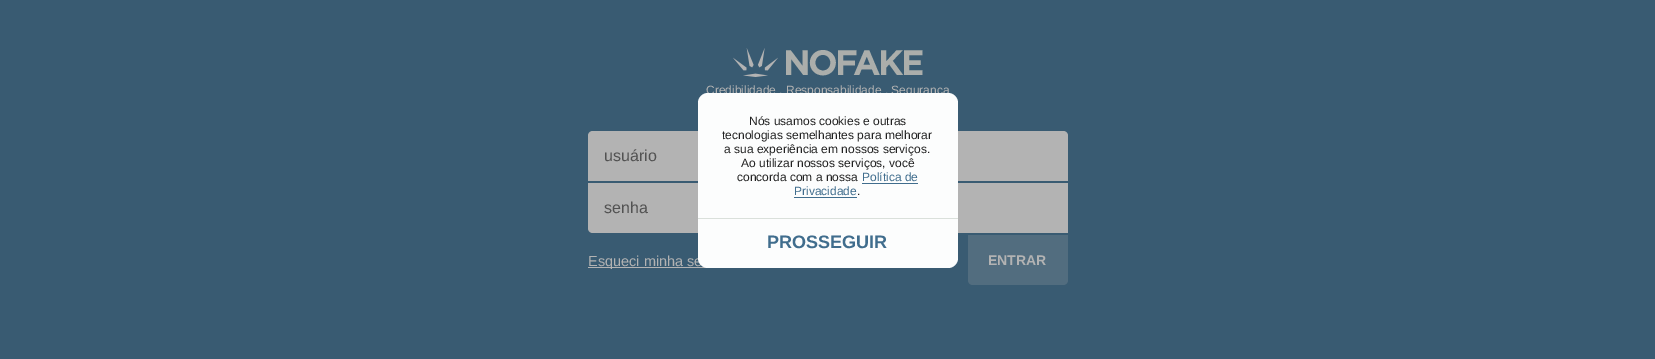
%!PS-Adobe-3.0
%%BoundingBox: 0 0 1655 359
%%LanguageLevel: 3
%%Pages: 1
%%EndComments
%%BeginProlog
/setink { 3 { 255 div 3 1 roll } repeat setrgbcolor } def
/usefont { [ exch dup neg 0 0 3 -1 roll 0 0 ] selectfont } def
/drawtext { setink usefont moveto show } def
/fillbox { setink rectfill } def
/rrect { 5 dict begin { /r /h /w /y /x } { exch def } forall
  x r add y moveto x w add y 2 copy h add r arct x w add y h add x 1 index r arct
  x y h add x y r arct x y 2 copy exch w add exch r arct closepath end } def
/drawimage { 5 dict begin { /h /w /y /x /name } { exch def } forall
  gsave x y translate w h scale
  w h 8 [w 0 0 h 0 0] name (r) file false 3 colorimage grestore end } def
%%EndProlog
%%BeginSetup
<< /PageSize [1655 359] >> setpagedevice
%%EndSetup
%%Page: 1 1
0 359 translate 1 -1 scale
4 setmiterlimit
0 0 1655 359 57 91 114 fillbox
(assets/img1.rgb) 733 48 190 29 drawimage
(Credibilidade . Responsabilidade . Segurança) 706 94 /LiberationSans-Regular 12 179 179 179 drawtext
593 131 moveto 1063 131 lineto 1066 131 1068 133 1068 136 curveto 1068 181 lineto 588 181 lineto 588 136 lineto 588 133 590 131 593 131 curveto closepath fill
(usuário) 604 161 /LiberationSans-Regular 16 82 82 82 drawtext
179 179 179 setink
588 183 moveto 1068 183 lineto 1068 233 lineto 593 233 lineto 590 233 588 231 588 228 curveto closepath fill
(senha) 604 213 /LiberationSans-Regular 16 82 82 82 drawtext
82 109 127 setink
968 235 moveto 1068 235 lineto 1068 280 lineto 1068 283 1066 285 1063 285 curveto 973 285 lineto 970 285 968 283 968 280 curveto closepath fill
(ENTRAR) 988 265 /LiberationSans-Bold 14 179 179 179 drawtext
588 267 120 1 179 179 179 fillbox
(Esqueci minha se) 588 266 /LiberationSans-Regular 14.5 179 179 179 drawtext
252 253 253 setink
698 93 260 175 10 rrect fill
(Nós usamos cookies e outras) 749 125 /LiberationSans-Regular 12 34 34 34 drawtext
(tecnologias semelhantes para melhorar) 722 139 /LiberationSans-Regular 12 34 34 34 drawtext
(a sua experiência em nossos serviços.) 724 153 /LiberationSans-Regular 12 34 34 34 drawtext
(Ao utilizar nossos serviços, você) 741 167 /LiberationSans-Regular 12 34 34 34 drawtext
(concorda com a nossa) 737 181 /LiberationSans-Regular 12 34 34 34 drawtext
(Política de) 862 181 /LiberationSans-Regular 12 64 109 141 drawtext
862 183 56 1 64 109 141 fillbox
(Privacidade) 794 195 /LiberationSans-Regular 12 64 109 141 drawtext
(.) 857 195 /LiberationSans-Regular 12 34 34 34 drawtext
794 197 63 1 64 109 141 fillbox
698 218 260 1 218 224 219 fillbox
(PROSSEGUIR) 767 248 /LiberationSans-Bold 18 64 109 141 drawtext
showpage
%%EOF
